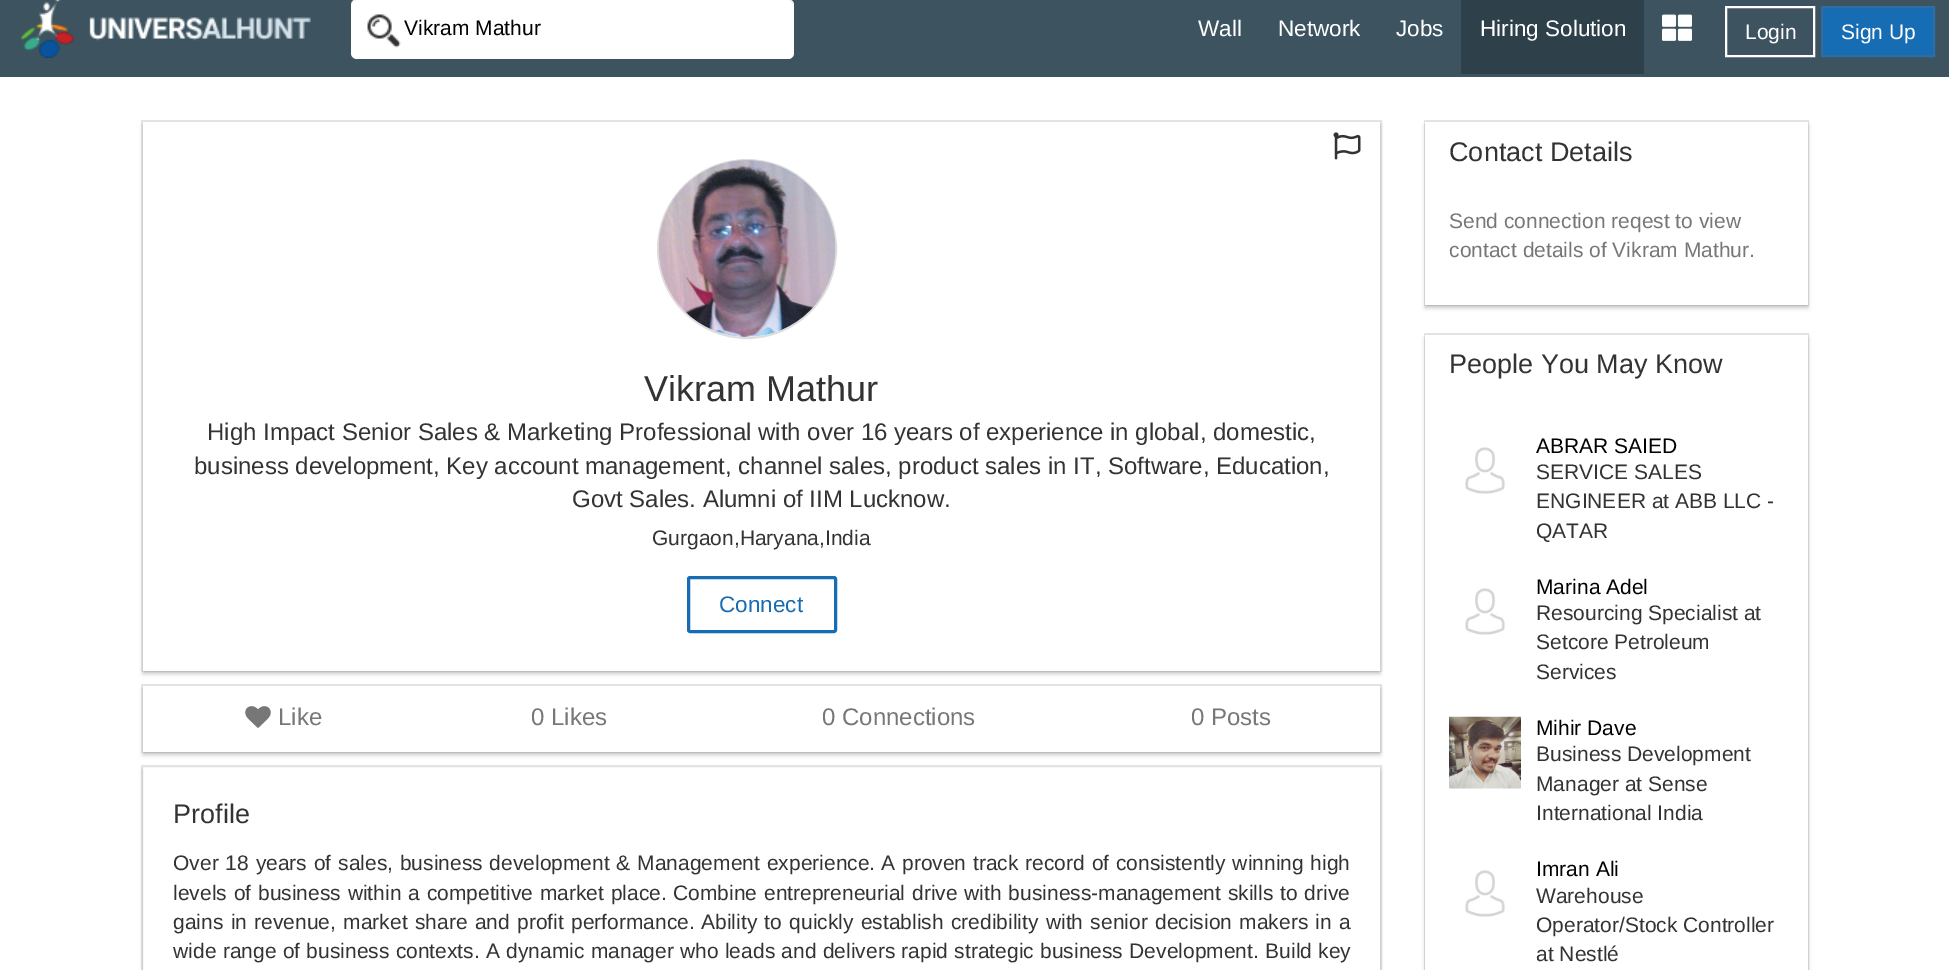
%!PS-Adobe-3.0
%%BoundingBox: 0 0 1949 970
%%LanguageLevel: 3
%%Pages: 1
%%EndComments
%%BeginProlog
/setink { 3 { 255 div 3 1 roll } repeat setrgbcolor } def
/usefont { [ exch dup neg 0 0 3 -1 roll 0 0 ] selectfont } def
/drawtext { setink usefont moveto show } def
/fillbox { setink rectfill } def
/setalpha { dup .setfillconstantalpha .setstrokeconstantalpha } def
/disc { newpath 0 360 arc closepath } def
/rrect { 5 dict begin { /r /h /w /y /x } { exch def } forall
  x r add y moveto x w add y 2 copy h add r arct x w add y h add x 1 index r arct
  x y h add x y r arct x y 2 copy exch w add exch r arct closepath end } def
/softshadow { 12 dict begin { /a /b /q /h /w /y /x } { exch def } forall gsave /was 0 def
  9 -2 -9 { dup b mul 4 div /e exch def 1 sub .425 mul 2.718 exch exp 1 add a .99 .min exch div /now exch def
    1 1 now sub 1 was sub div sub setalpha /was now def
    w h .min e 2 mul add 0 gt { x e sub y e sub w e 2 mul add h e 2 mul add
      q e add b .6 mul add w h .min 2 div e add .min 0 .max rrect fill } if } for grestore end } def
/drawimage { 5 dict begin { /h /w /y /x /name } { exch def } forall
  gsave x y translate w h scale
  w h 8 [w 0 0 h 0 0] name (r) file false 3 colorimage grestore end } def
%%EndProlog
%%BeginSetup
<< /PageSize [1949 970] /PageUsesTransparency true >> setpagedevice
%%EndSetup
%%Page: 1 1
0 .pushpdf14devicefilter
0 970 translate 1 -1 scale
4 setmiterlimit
0 0 1949 970 255 255 255 fillbox
0 0 1949 77 61 84 96 fillbox
(assets/img1.rgb) 20 0 291 58 drawimage
255 255 255 setink
351 -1 443 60 6 rrect fill
(assets/img2.rgb) 367 14 34 34 drawimage
0.07 setalpha
0 0 0 setink
357 0 moveto 788 0 lineto 790 0 792 2 793 4 curveto 793 1 791 -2 788 -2 curveto 357 -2 lineto 354 -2 351 1 351 4 curveto 351 6 lineto 351 3 354 0 357 0 curveto closepath fill
0.1 setalpha
354 58 437 1 255 255 255 fillbox
1 setalpha
(Vikram Mathur) 404 35 /Arimo-Regular 21 0 0 0 drawtext
(Wall) 1198 36 /Arimo-Regular 22.5 255 255 255 drawtext
(Network) 1278 36 /Arimo-Regular 22.5 255 255 255 drawtext
(Jobs) 1396 36 /Arimo-Regular 22.5 255 255 255 drawtext
1461 0 183 74 46 65 75 fillbox
(Hiring Solution) 1480 36 /Arimo-Regular 22.5 255 255 255 drawtext
(assets/img3.rgb) 1662 14 30 27 drawimage
2 setlinewidth
1726 7 88 49 rectstroke
(Login) 1745 39 /Arimo-Regular 21 255 255 255 drawtext
22 109 180 setink
1822 7 moveto 1934 7 lineto 1934 56 lineto 1822 56 lineto closepath gsave fill grestore
46 109 164 setink
stroke
(Sign Up) 1841 39 /Arimo-Regular 21 255 255 255 drawtext
0 0 0 setink
143 125 1237 549 0 2 0.2 softshadow
0.1 setalpha
142 121 1239 550 rectstroke
1 setalpha
143 122 1237 549 255 255 255 fillbox
(assets/img4.rgb) 1333 132 28 28 drawimage
221 221 221 setink
747 249 89 disc stroke
(assets/img5.rgb) 658 160 178 177 drawimage
(Vikram Mathur) 644 401 /Arimo-Regular 36 51 51 51 drawtext
(High Impact Senior Sales & Marketing Professional with over 16 years of experience in global, domestic,) 207 440 /Arimo-Regular 24 51 51 51 drawtext
(business development, Key account management, channel sales, product sales in IT, Software, Education,) 194 474 /Arimo-Regular 24 51 51 51 drawtext
(Govt Sales. Alumni of IIM Lucknow.) 572 507 /Arimo-Regular 24 51 51 51 drawtext
(Gurgaon,Haryana,India) 652 545 /Arimo-Regular 21 51 51 51 drawtext
22 109 180 setink
3 setlinewidth
688.5 577.5 147 54 1.5 rrect stroke
(Connect) 719 612 /Arimo-Regular 22.5 22 109 180 drawtext
0 0 0 setink
143 689 1237 66 0 2 0.2 softshadow
0.1 setalpha
2 setlinewidth
142 685 1239 67 rectstroke
1 setalpha
143 686 1237 66 255 255 255 fillbox
(assets/img6.rgb) 245 706 26 22 drawimage
(Like) 278 725 /Arimo-Regular 24 119 119 119 drawtext
(0 Likes) 531 725 /Arimo-Regular 24 119 119 119 drawtext
(0 Connections) 822 725 /Arimo-Regular 24 119 119 119 drawtext
(0 Posts) 1191 725 /Arimo-Regular 24 119 119 119 drawtext
gsave
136 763 moveto 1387 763 lineto 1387 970 lineto 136 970 lineto closepath 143 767 moveto 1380 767 lineto 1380 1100 lineto 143 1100 lineto closepath eoclip newpath
0 0 0 setink
143 770 1237 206 0 2 0.2 softshadow
grestore
0.1 setalpha
0 0 0 setink
142 766 1239 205 rectstroke
1 setalpha
(Profile) 173 823 /Arimo-Regular 27 51 51 51 drawtext
/Arimo-Regular 21 usefont
173 870 moveto 1 0 32 (Over 18 years of sales, business development & Management experience.) widthshow
881 870 moveto 1 0 32 (A proven track record of consistently winning high) widthshow
173 900 moveto 1 0 32 (levels of business within a competitive market place.) widthshow
673 900 moveto 1 0 32 (Combine entrepreneurial drive with business-management skills to drive) widthshow
173 929 moveto 1.5 0 32 (gains in revenue, market share and profit performance.) widthshow
701 929 moveto 1.5 0 32 (Ability to quickly establish credibility with senior decision makers in a) widthshow
173 958 moveto 0.5 0 32 (wide range of business contexts. A dynamic manager who leads and delivers rapid strategic business Development. Build key) widthshow
0 0 0 setink
1425 125 383 183 0 2 0.2 softshadow
0.1 setalpha
1425 121 383 184 rectstroke
1 setalpha
1425 122 383 183 255 255 255 fillbox
(Contact Details) 1449 161 /Arimo-Regular 27 51 51 51 drawtext
(Send connection reqest to view) 1449 228 /Arimo-Regular 21 119 119 119 drawtext
(contact details of Vikram Mathur.) 1449 257 /Arimo-Regular 21 119 119 119 drawtext
0 0 0 setink
1425 338 383 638 0 2 0.2 softshadow
0.1 setalpha
1425 334 383 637 rectstroke
1 setalpha
1425 335 383 635 255 255 255 fillbox
(People You May Know) 1449 373 /Arimo-Regular 27 51 51 51 drawtext
(assets/img7.rgb) 1465 447 40 47 drawimage
(ABRAR SAIED) 1536 453 /Arimo-Regular 21 0 0 0 drawtext
(SERVICE SALES) 1536 479 /Arimo-Regular 21 51 51 51 drawtext
(ENGINEER at ABB LLC -) 1536 508 /Arimo-Regular 21 51 51 51 drawtext
(QATAR) 1536 538 /Arimo-Regular 21 51 51 51 drawtext
(assets/img7.rgb) 1465 588 40 47 drawimage
(Marina Adel) 1536 594 /Arimo-Regular 21 0 0 0 drawtext
(Resourcing Specialist at) 1536 620 /Arimo-Regular 21 51 51 51 drawtext
(Setcore Petroleum) 1536 649 /Arimo-Regular 21 51 51 51 drawtext
(Services) 1536 679 /Arimo-Regular 21 51 51 51 drawtext
(assets/img8.rgb) 1449 716 72 73 drawimage
(Mihir Dave) 1536 735 /Arimo-Regular 21 0 0 0 drawtext
(Business Development) 1536 761 /Arimo-Regular 21 51 51 51 drawtext
(Manager at Sense) 1536 791 /Arimo-Regular 21 51 51 51 drawtext
(International India) 1536 820 /Arimo-Regular 21 51 51 51 drawtext
(assets/img7.rgb) 1465 870 40 47 drawimage
(Imran Ali) 1536 876 /Arimo-Regular 21 0 0 0 drawtext
(Warehouse) 1536 903 /Arimo-Regular 21 51 51 51 drawtext
(Operator/Stock Controller) 1536 932 /Arimo-Regular 21 51 51 51 drawtext
(at Nestlé) 1536 961 /Arimo-Regular 21 51 51 51 drawtext
.poppdf14devicefilter showpage
%%EOF
